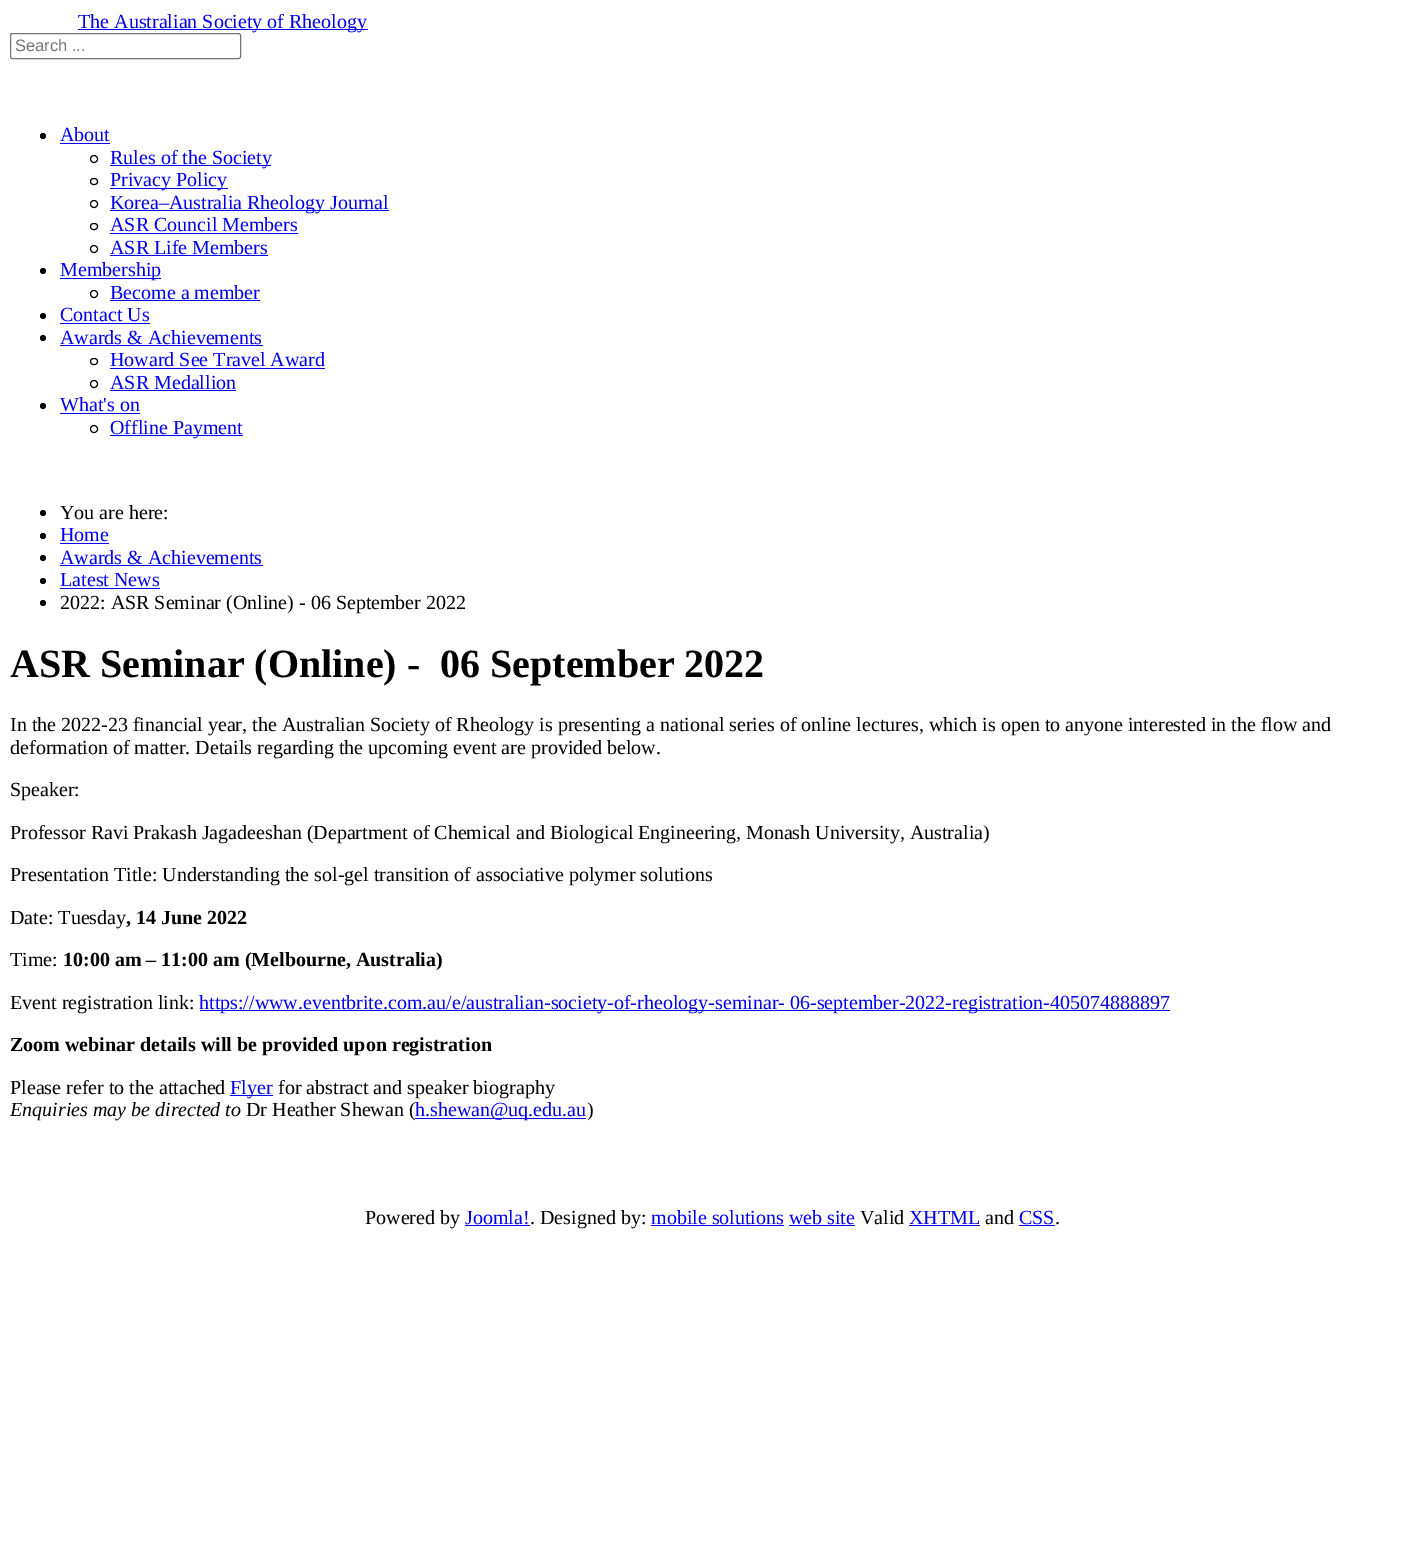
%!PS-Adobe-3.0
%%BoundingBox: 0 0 1424 1543
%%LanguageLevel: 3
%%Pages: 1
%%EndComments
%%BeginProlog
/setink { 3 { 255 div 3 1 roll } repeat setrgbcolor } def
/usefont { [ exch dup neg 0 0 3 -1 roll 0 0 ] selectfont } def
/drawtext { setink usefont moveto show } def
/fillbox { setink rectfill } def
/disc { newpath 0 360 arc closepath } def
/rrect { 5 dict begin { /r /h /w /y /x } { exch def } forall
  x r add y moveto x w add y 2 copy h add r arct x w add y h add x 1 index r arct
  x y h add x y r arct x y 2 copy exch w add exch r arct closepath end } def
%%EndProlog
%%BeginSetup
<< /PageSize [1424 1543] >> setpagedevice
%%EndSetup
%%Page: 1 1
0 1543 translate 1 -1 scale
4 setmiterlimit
0 0 1424 1543 255 255 255 fillbox
78 29 290 1 0 0 238 fillbox
(The Australian Society of Rheology) 78 28 /LiberationSerif-Regular 20 0 0 238 drawtext
118 118 118 setink
10.5 33.5 230 25 2 rrect stroke
(Search ...) 15 51 /LiberationSans-Regular 16.5 117 117 117 drawtext
0 0 0 setink
43 136 3 disc fill
(About) 60 141 /LiberationSerif-Regular 20 0 0 238 drawtext
60 143 50 1 0 0 238 fillbox
0 0 0 setink
94 159 3.5 disc stroke
110 165 161 1 0 0 238 fillbox
(Rules of the Society) 110 164 /LiberationSerif-Regular 20 0 0 238 drawtext
0 0 0 setink
90.5 178.5 7 6 3 rrect stroke
110 188 118 1 0 0 238 fillbox
(Privacy Policy) 110 186 /LiberationSerif-Regular 20 0 0 238 drawtext
0 0 0 setink
94 204 3.5 disc stroke
110 210 279 1 0 0 238 fillbox
(Korea–Australia Rheology Journal) 110 209 /LiberationSerif-Regular 20 0 0 238 drawtext
0 0 0 setink
90.5 223.5 7 6 3 rrect stroke
(ASR Council Members) 110 231 /LiberationSerif-Regular 20 0 0 238 drawtext
110 233 188 1 0 0 238 fillbox
0 0 0 setink
94 249 3.5 disc stroke
(ASR Life Members) 110 254 /LiberationSerif-Regular 20 0 0 238 drawtext
110 255 158 1 0 0 238 fillbox
0 0 0 setink
43 271 3 disc fill
60 278 101 1 0 0 238 fillbox
(Membership) 60 276 /LiberationSerif-Regular 20 0 0 238 drawtext
0 0 0 setink
94 294 3.5 disc stroke
(Become a member) 110 299 /LiberationSerif-Regular 20 0 0 238 drawtext
110 300 150 1 0 0 238 fillbox
0 0 0 setink
43 316 3 disc fill
(Contact Us) 60 321 /LiberationSerif-Regular 20 0 0 238 drawtext
60 323 90 1 0 0 238 fillbox
0 0 0 setink
43 338 3 disc fill
(Awards & Achievements) 60 344 /LiberationSerif-Regular 20 0 0 238 drawtext
60 345 203 1 0 0 238 fillbox
0 0 0 setink
90.5 358.5 7 6 3 rrect stroke
(Howard See Travel Award) 110 366 /LiberationSerif-Regular 20 0 0 238 drawtext
110 368 215 1 0 0 238 fillbox
0 0 0 setink
94 384 3.5 disc stroke
(ASR Medallion) 110 389 /LiberationSerif-Regular 20 0 0 238 drawtext
110 390 126 1 0 0 238 fillbox
0 0 0 setink
43 406 3 disc fill
(What's on) 60 411 /LiberationSerif-Regular 20 0 0 238 drawtext
60 413 80 1 0 0 238 fillbox
0 0 0 setink
94 429 3.5 disc stroke
110 435 133 1 0 0 238 fillbox
(Offline Payment) 110 434 /LiberationSerif-Regular 20 0 0 238 drawtext
0 0 0 setink
43 513 3 disc fill
(You are here:) 60 519 /LiberationSerif-Regular 20 0 0 0 drawtext
43 536 3 disc fill
(Home) 60 541 /LiberationSerif-Regular 20 0 0 238 drawtext
60 543 49 1 0 0 238 fillbox
0 0 0 setink
43 558 3 disc fill
(Awards & Achievements) 60 564 /LiberationSerif-Regular 20 0 0 238 drawtext
60 565 203 1 0 0 238 fillbox
0 0 0 setink
43 581 3 disc fill
(Latest News) 60 586 /LiberationSerif-Regular 20 0 0 238 drawtext
60 588 100 1 0 0 238 fillbox
0 0 0 setink
43 603 3 disc fill
(2022: ASR Seminar \(Online\) - 06 September 2022) 60 609 /LiberationSerif-Regular 20 0 0 0 drawtext
(ASR Seminar \(Online\) -  06 September 2022) 10 677 /LiberationSerif-Bold 40 0 0 0 drawtext
(In the 2022-23 financial year, the Australian Society of Rheology is presenting a national series of online lectures, which is open to anyone interested in the flow and) 10 731 /LiberationSerif-Regular 20 0 0 0 drawtext
(deformation of matter. Details regarding the upcoming event are provided below.) 10 754 /LiberationSerif-Regular 20 0 0 0 drawtext
(Speaker:) 10 796 /LiberationSerif-Regular 20 0 0 0 drawtext
(Professor Ravi Prakash Jagadeeshan \(Department of Chemical and Biological Engineering, Monash University, Australia\)) 10 839 /LiberationSerif-Regular 20 0 0 0 drawtext
(Presentation Title: Understanding the sol-gel transition of associative polymer solutions) 10 881 /LiberationSerif-Regular 20 0 0 0 drawtext
(Date: Tuesday) 10 924 /LiberationSerif-Regular 20 0 0 0 drawtext
(, 14 June 2022) 126 924 /LiberationSerif-Bold 20 0 0 0 drawtext
(Time:) 10 966 /LiberationSerif-Regular 20 0 0 0 drawtext
(10:00 am – 11:00 am \(Melbourne, Australia\)) 63 966 /LiberationSerif-Bold 20 0 0 0 drawtext
(Event registration link:) 10 1009 /LiberationSerif-Regular 20 0 0 0 drawtext
200 1010 970 1 0 0 238 fillbox
(https://www.eventbrite.com.au/e/australian-society-of-rheology-seminar- 06-september-2022-registration-405074888897) 199 1009 /LiberationSerif-Regular 20 0 0 238 drawtext
(Zoom webinar details will be provided upon registration) 10 1051 /LiberationSerif-Bold 20 0 0 0 drawtext
(Please refer to the attached) 10 1094 /LiberationSerif-Regular 20 0 0 0 drawtext
230 1095 43 1 0 0 238 fillbox
(Flyer) 230 1094 /LiberationSerif-Regular 20 0 0 238 drawtext
(for abstract and speaker biography) 278 1094 /LiberationSerif-Regular 20 0 0 0 drawtext
(Enquiries may be directed to) 10 1116 /LiberationSerif-Italic 20 0 0 0 drawtext
(Dr Heather Shewan \() 246 1116 /LiberationSerif-Regular 20 0 0 0 drawtext
415 1118 171 1 0 0 238 fillbox
(h.shewan@uq.edu.au) 415 1116 /LiberationSerif-Regular 20 0 0 238 drawtext
(\)) 587 1116 /LiberationSerif-Regular 20 0 0 0 drawtext
(Powered by) 365 1224 /LiberationSerif-Regular 20 0 0 0 drawtext
(Joomla!) 465 1224 /LiberationSerif-Regular 20 0 0 238 drawtext
465 1225 65 1 0 0 238 fillbox
(. Designed by:) 530 1224 /LiberationSerif-Regular 20 0 0 0 drawtext
(mobile solutions web site) 651 1224 /LiberationSerif-Regular 20 0 0 238 drawtext
651 1225 133 1 0 0 238 fillbox
(Valid) 860 1224 /LiberationSerif-Regular 20 0 0 0 drawtext
(XHTML) 909 1224 /LiberationSerif-Regular 20 0 0 238 drawtext
909 1225 71 1 0 0 238 fillbox
(and) 985 1224 /LiberationSerif-Regular 20 0 0 0 drawtext
(CSS) 1019 1224 /LiberationSerif-Regular 20 0 0 238 drawtext
1019 1225 36 1 0 0 238 fillbox
(.) 1055 1224 /LiberationSerif-Regular 20 0 0 0 drawtext
789 1225 66 1 0 0 238 fillbox
showpage
%%EOF
